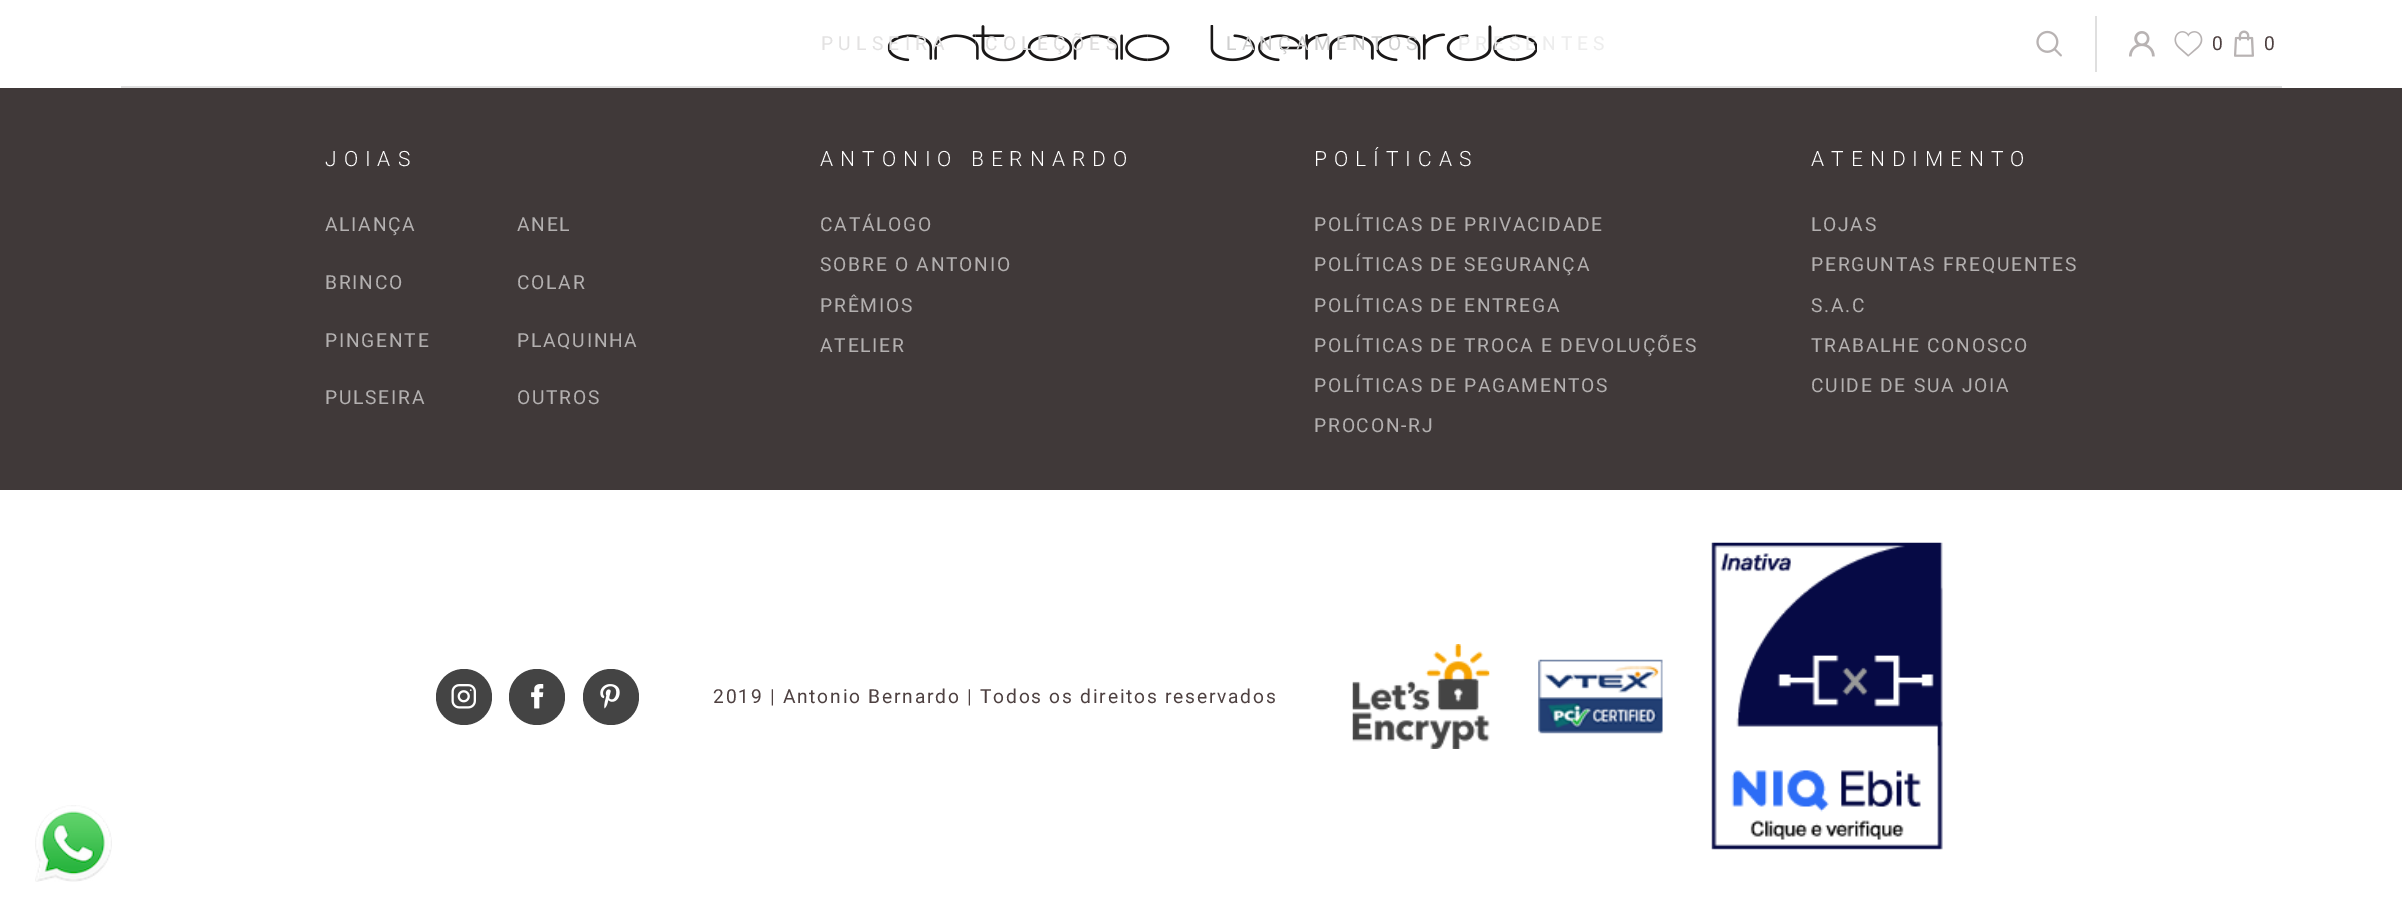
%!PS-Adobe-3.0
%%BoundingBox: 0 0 2402 903
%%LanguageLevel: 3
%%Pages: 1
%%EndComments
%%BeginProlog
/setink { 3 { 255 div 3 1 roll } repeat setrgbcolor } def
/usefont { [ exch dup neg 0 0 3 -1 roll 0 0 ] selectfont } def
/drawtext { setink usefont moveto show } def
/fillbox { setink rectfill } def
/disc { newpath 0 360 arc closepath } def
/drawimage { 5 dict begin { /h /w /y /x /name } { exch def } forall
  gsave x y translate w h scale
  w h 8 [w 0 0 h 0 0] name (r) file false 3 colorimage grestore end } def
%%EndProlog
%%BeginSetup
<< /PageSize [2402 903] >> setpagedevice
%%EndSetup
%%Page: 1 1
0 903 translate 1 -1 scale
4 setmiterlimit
0 0 2402 903 255 255 255 fillbox
121 86 2161 2 223 223 223 fillbox
(assets/img1.rgb) 887 25 650 37 drawimage
/Roboto-Regular 19.25 usefont
227 226 226 setink
821 50 moveto 5.25 0 (PULSEIRA) ashow
220 219 219 setink
985 50 moveto 5.25 0 (COLEÇÕES) ashow
255 255 255 setink
1163 40.5 moveto 1149 40.5 lineto 1156 48 lineto closepath fill
207 207 207 setink
1226 50 moveto 5.25 0 (LANÇAMENTOS) ashow
237 237 237 setink
1458 50 moveto 5.25 0 (PRESENTES) ashow
2095 16 2 56 223 223 223 fillbox
(assets/img2.rgb) 2036 30 26 27 drawimage
(assets/img3.rgb) 2129 31 26 26 drawimage
(assets/img4.rgb) 2174 31 29 26 drawimage
(0) 2212 50 /Roboto-Regular 19.25 78 65 65 drawtext
(assets/img5.rgb) 2234 30 20 27 drawimage
(0) 2264 50 /Roboto-Regular 19.25 78 65 65 drawtext
0 88 2402 402 64 57 57 fillbox
/Roboto-Light 21 usefont
255 255 255 setink
325 166 moveto 7 0 (JOIAS) ashow
/Roboto-Regular 19.25 usefont
179 176 176 setink
325 231 moveto 1.75 0 (ALIANÇA) ashow
517 231 moveto 1.75 0 (ANEL) ashow
325 289 moveto 1.75 0 (BRINCO) ashow
517 289 moveto 1.75 0 (COLAR) ashow
325 347 moveto 1.75 0 (PINGENTE) ashow
517 347 moveto 1.75 0 (PLAQUINHA) ashow
325 404 moveto 1.75 0 (PULSEIRA) ashow
517 404 moveto 1.75 0 (OUTROS) ashow
/Roboto-Light 21 usefont
255 255 255 setink
820 166 moveto 7 0 (ANTONIO BERNARDO) ashow
/Roboto-Regular 19.25 usefont
179 176 176 setink
820 231 moveto 1.75 0 (CATÁLOGO) ashow
820 271 moveto 1.75 0 (SOBRE O ANTONIO) ashow
820 312 moveto 1.75 0 (PRÊMIOS) ashow
820 352 moveto 1.75 0 (ATELIER) ashow
/Roboto-Light 21 usefont
255 255 255 setink
1314 166 moveto 7 0 (POLÍTICAS) ashow
/Roboto-Regular 19.25 usefont
179 176 176 setink
1314 231 moveto 1.75 0 (POLÍTICAS DE PRIVACIDADE) ashow
1314 271 moveto 1.75 0 (POLÍTICAS DE SEGURANÇA) ashow
1314 312 moveto 1.75 0 (POLÍTICAS DE ENTREGA) ashow
1314 352 moveto 1.75 0 (POLÍTICAS DE TROCA E DEVOLUÇÕES) ashow
1314 392 moveto 1.75 0 (POLÍTICAS DE PAGAMENTOS) ashow
1314 432 moveto 1.75 0 (PROCON-RJ) ashow
/Roboto-Light 21 usefont
255 255 255 setink
1811 166 moveto 7 0 (ATENDIMENTO) ashow
/Roboto-Regular 19.25 usefont
179 176 176 setink
1811 231 moveto 1.75 0 (LOJAS) ashow
1811 271 moveto 1.75 0 (PERGUNTAS FREQUENTES) ashow
1811 312 moveto 1.75 0 (S.A.C) ashow
1811 352 moveto 1.75 0 (TRABALHE CONOSCO) ashow
1811 392 moveto 1.75 0 (CUIDE DE SUA JOIA) ashow
68 68 68 setink
464 697 28 disc fill
(assets/img6.rgb) 451 684 25 25 drawimage
537 697 28 disc fill
(assets/img7.rgb) 531 684 13 25 drawimage
611 697 28 disc fill
(assets/img8.rgb) 600 684 20 25 drawimage
78 65 65 setink
713 703 moveto 1.75 0 (2019 | Antonio Bernardo | Todos os direitos reservados) ashow
(assets/img9.rgb) 1352 644 138 105 drawimage
(assets/img10.rgb) 1538 659 125 75 drawimage
(assets/img11.rgb) 1711 542 232 308 drawimage
(assets/img12.rgb) 35 805 77 77 drawimage
showpage
%%EOF
